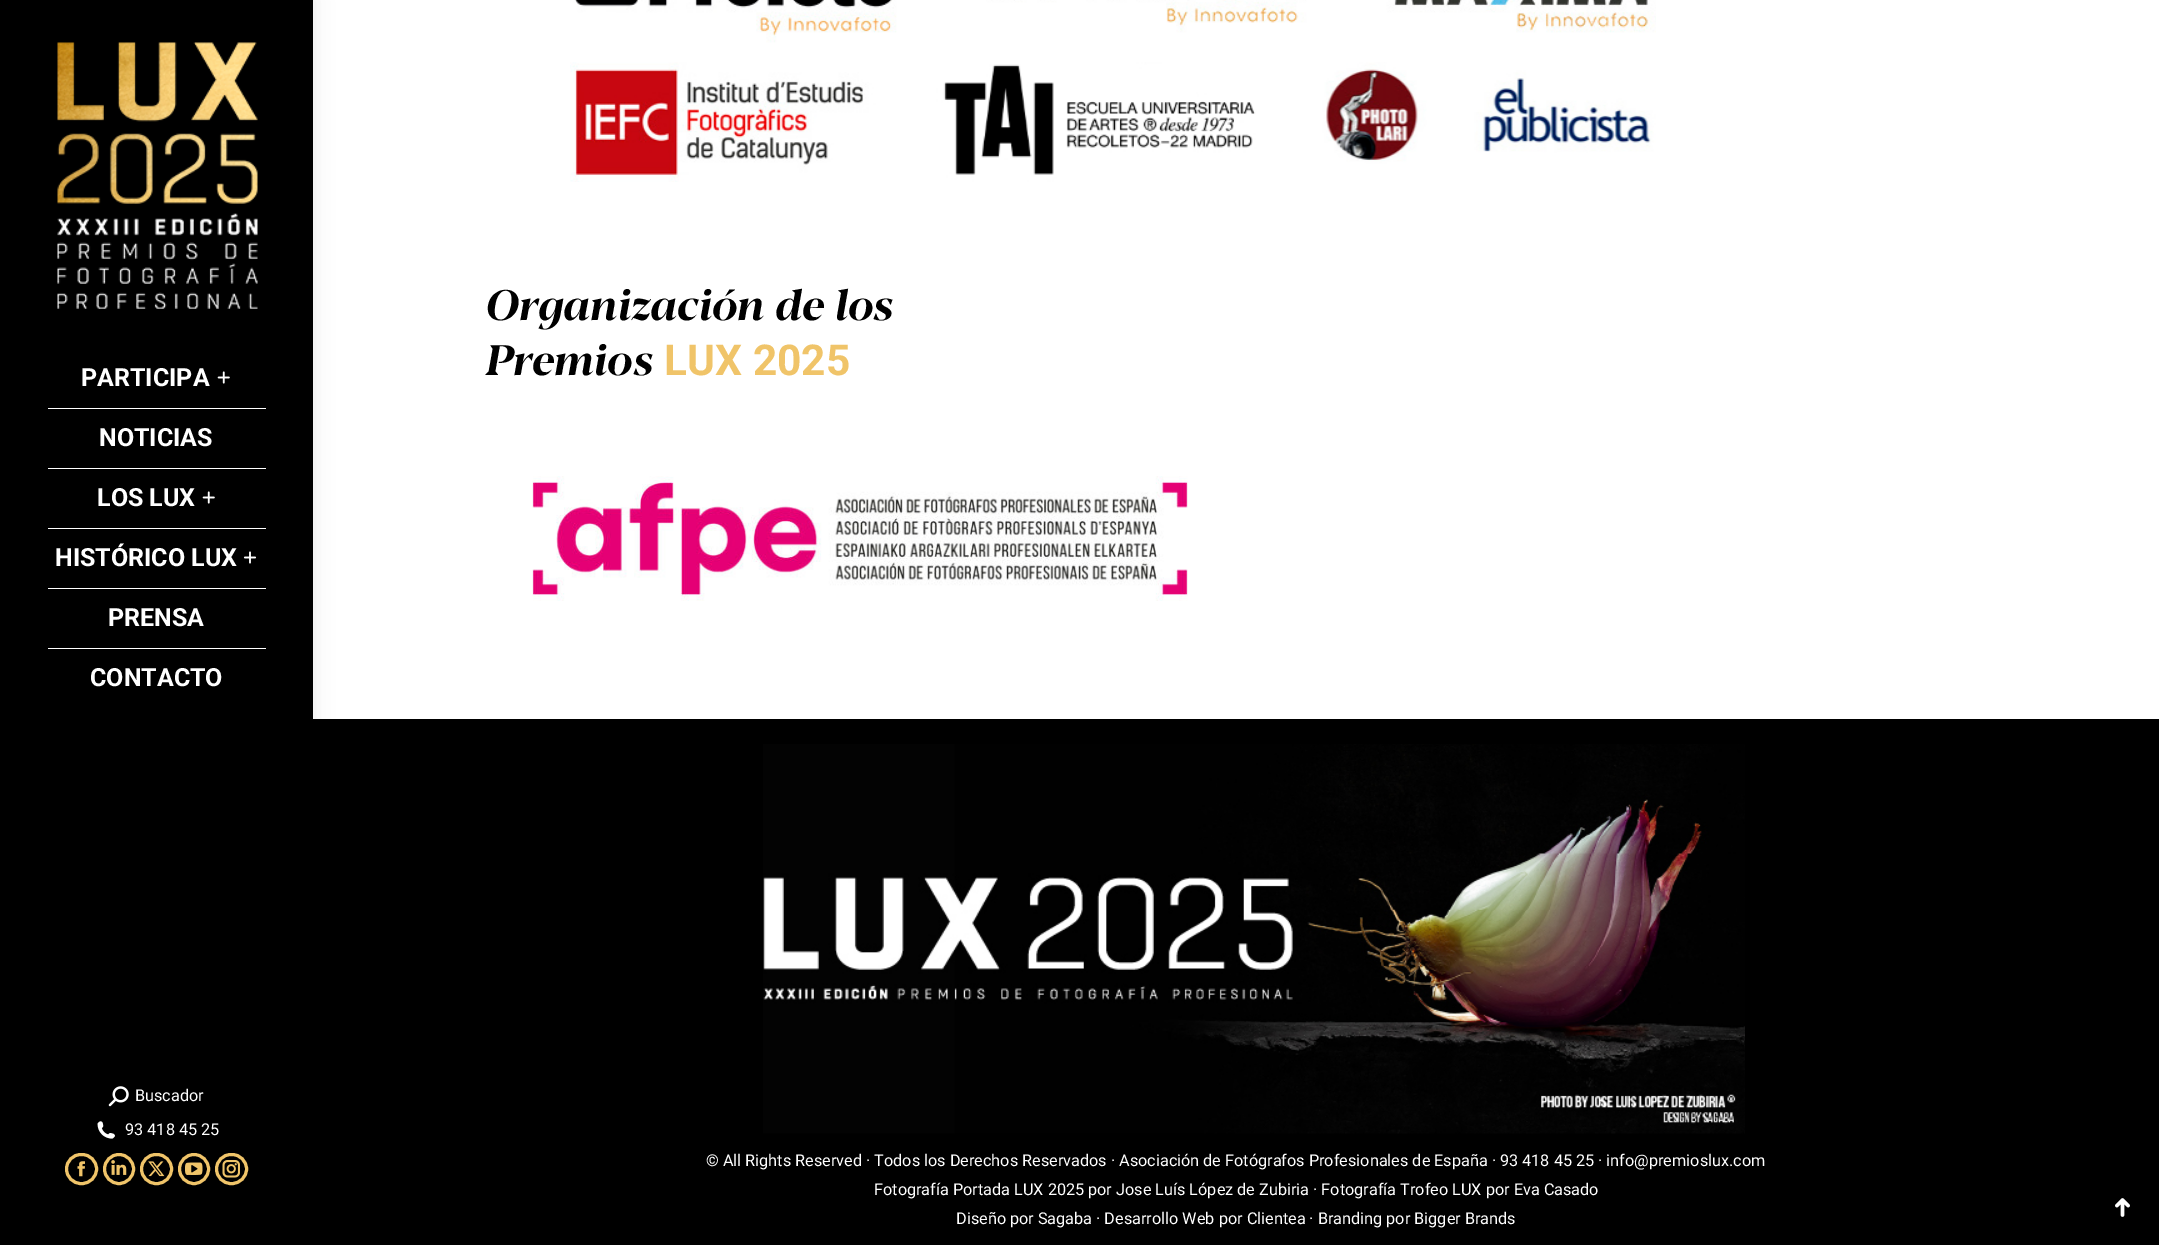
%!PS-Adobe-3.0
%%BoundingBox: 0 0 2159 1245
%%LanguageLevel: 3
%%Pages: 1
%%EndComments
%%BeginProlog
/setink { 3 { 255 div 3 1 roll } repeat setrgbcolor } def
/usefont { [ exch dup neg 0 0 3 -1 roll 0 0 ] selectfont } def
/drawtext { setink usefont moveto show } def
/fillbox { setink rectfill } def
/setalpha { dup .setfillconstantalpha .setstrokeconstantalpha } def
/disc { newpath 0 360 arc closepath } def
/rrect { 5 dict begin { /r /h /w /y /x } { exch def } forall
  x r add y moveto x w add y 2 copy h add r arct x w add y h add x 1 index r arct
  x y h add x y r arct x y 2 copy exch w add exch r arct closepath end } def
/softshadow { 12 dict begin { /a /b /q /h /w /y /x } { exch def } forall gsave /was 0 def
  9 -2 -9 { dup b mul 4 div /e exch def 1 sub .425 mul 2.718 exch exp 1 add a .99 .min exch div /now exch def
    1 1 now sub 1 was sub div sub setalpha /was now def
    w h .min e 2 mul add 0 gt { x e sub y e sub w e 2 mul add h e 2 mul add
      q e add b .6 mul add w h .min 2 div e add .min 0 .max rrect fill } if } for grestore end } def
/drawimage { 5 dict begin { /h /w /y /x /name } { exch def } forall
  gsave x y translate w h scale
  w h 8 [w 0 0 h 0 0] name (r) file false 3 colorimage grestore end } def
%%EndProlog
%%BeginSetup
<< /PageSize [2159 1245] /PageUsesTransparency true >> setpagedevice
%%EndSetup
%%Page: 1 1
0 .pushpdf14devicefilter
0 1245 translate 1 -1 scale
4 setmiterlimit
0 0 2159 1245 255 255 255 fillbox
313 719 1846 526 0 0 0 fillbox
-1 -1 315 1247 0 9.5 0.07 softshadow
0 0 313 1245 0 0 0 fillbox
(assets/img1.rgb) 57 42 201 267 drawimage
(PARTICIPA) 81 386 /Roboto-Bold 25 255 255 255 drawtext
(assets/img2.rgb) 217 371 13 13 drawimage
48 408 218 1 255 255 255 fillbox
(NOTICIAS) 99 446 /Roboto-Bold 25 255 255 255 drawtext
48 468 218 1 255 255 255 fillbox
(LOS LUX) 97 506 /Roboto-Bold 25 255 255 255 drawtext
(assets/img2.rgb) 202 491 13 13 drawimage
48 528 218 1 255 255 255 fillbox
(HISTÓRICO LUX) 55 566 /Roboto-Bold 25 255 255 255 drawtext
(assets/img3.rgb) 243 551 14 13 drawimage
48 588 218 1 255 255 255 fillbox
(PRENSA) 108 626 /Roboto-Bold 25 255 255 255 drawtext
48 648 218 1 255 255 255 fillbox
(CONTACTO) 90 686 /Roboto-Bold 25 255 255 255 drawtext
(assets/img4.rgb) 108 1086 21 21 drawimage
(Buscador) 135 1101 /Roboto-Regular 16.25 255 255 255 drawtext
(assets/img5.rgb) 97 1121 18 18 drawimage
(93 418 45 25) 125 1135 /Roboto-Regular 16.25 255 255 255 drawtext
240 196 105 setink
3 setlinewidth
66.5 1154.5 30 29 14.5 rrect stroke
(assets/img6.rgb) 77 1161 8 16 drawimage
119 1169 14.5 disc stroke
(assets/img7.rgb) 111 1160 16 15 drawimage
141.5 1154.5 30 29 14.5 rrect stroke
(assets/img8.rgb) 148 1161 17 16 drawimage
194 1169 14.5 disc stroke
(assets/img9.rgb) 185 1162 18 13 drawimage
216.5 1154.5 30 29 14.5 rrect stroke
(assets/img10.rgb) 222 1160 18 18 drawimage
(assets/img11.rgb) 570 0 1086 182 drawimage
(Organización de los) 486 320 /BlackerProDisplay-BoldItalic 42.5 0 0 0 drawtext
(Premios) 486 375 /BlackerProDisplay-BoldItalic 42.5 0 0 0 drawtext
(LUX 2025) 664 375 /Roboto-Bold 42.5 240 196 105 drawtext
(assets/img12.rgb) 532 476 656 125 drawimage
(assets/img13.rgb) 763 744 982 390 drawimage
(© All Rights Reserved · Todos los Derechos Reservados · Asociación de Fotógrafos Profesionales de España · 93 418 45 25 · info@premioslux.com) 706 1166 /Roboto-Regular 16.25 255 255 255 drawtext
(Fotografía Portada LUX 2025 por Jose Luís López de Zubiria · Fotografía Trofeo LUX por Eva Casado) 874 1195 /Roboto-Regular 16.25 255 255 255 drawtext
(Diseño por Sagaba · Desarrollo Web por Clientea · Branding por Bigger Brands) 956 1224 /Roboto-Regular 16.25 255 255 255 drawtext
(assets/img14.rgb) 2115 1198 15 19 drawimage
.poppdf14devicefilter showpage
%%EOF
